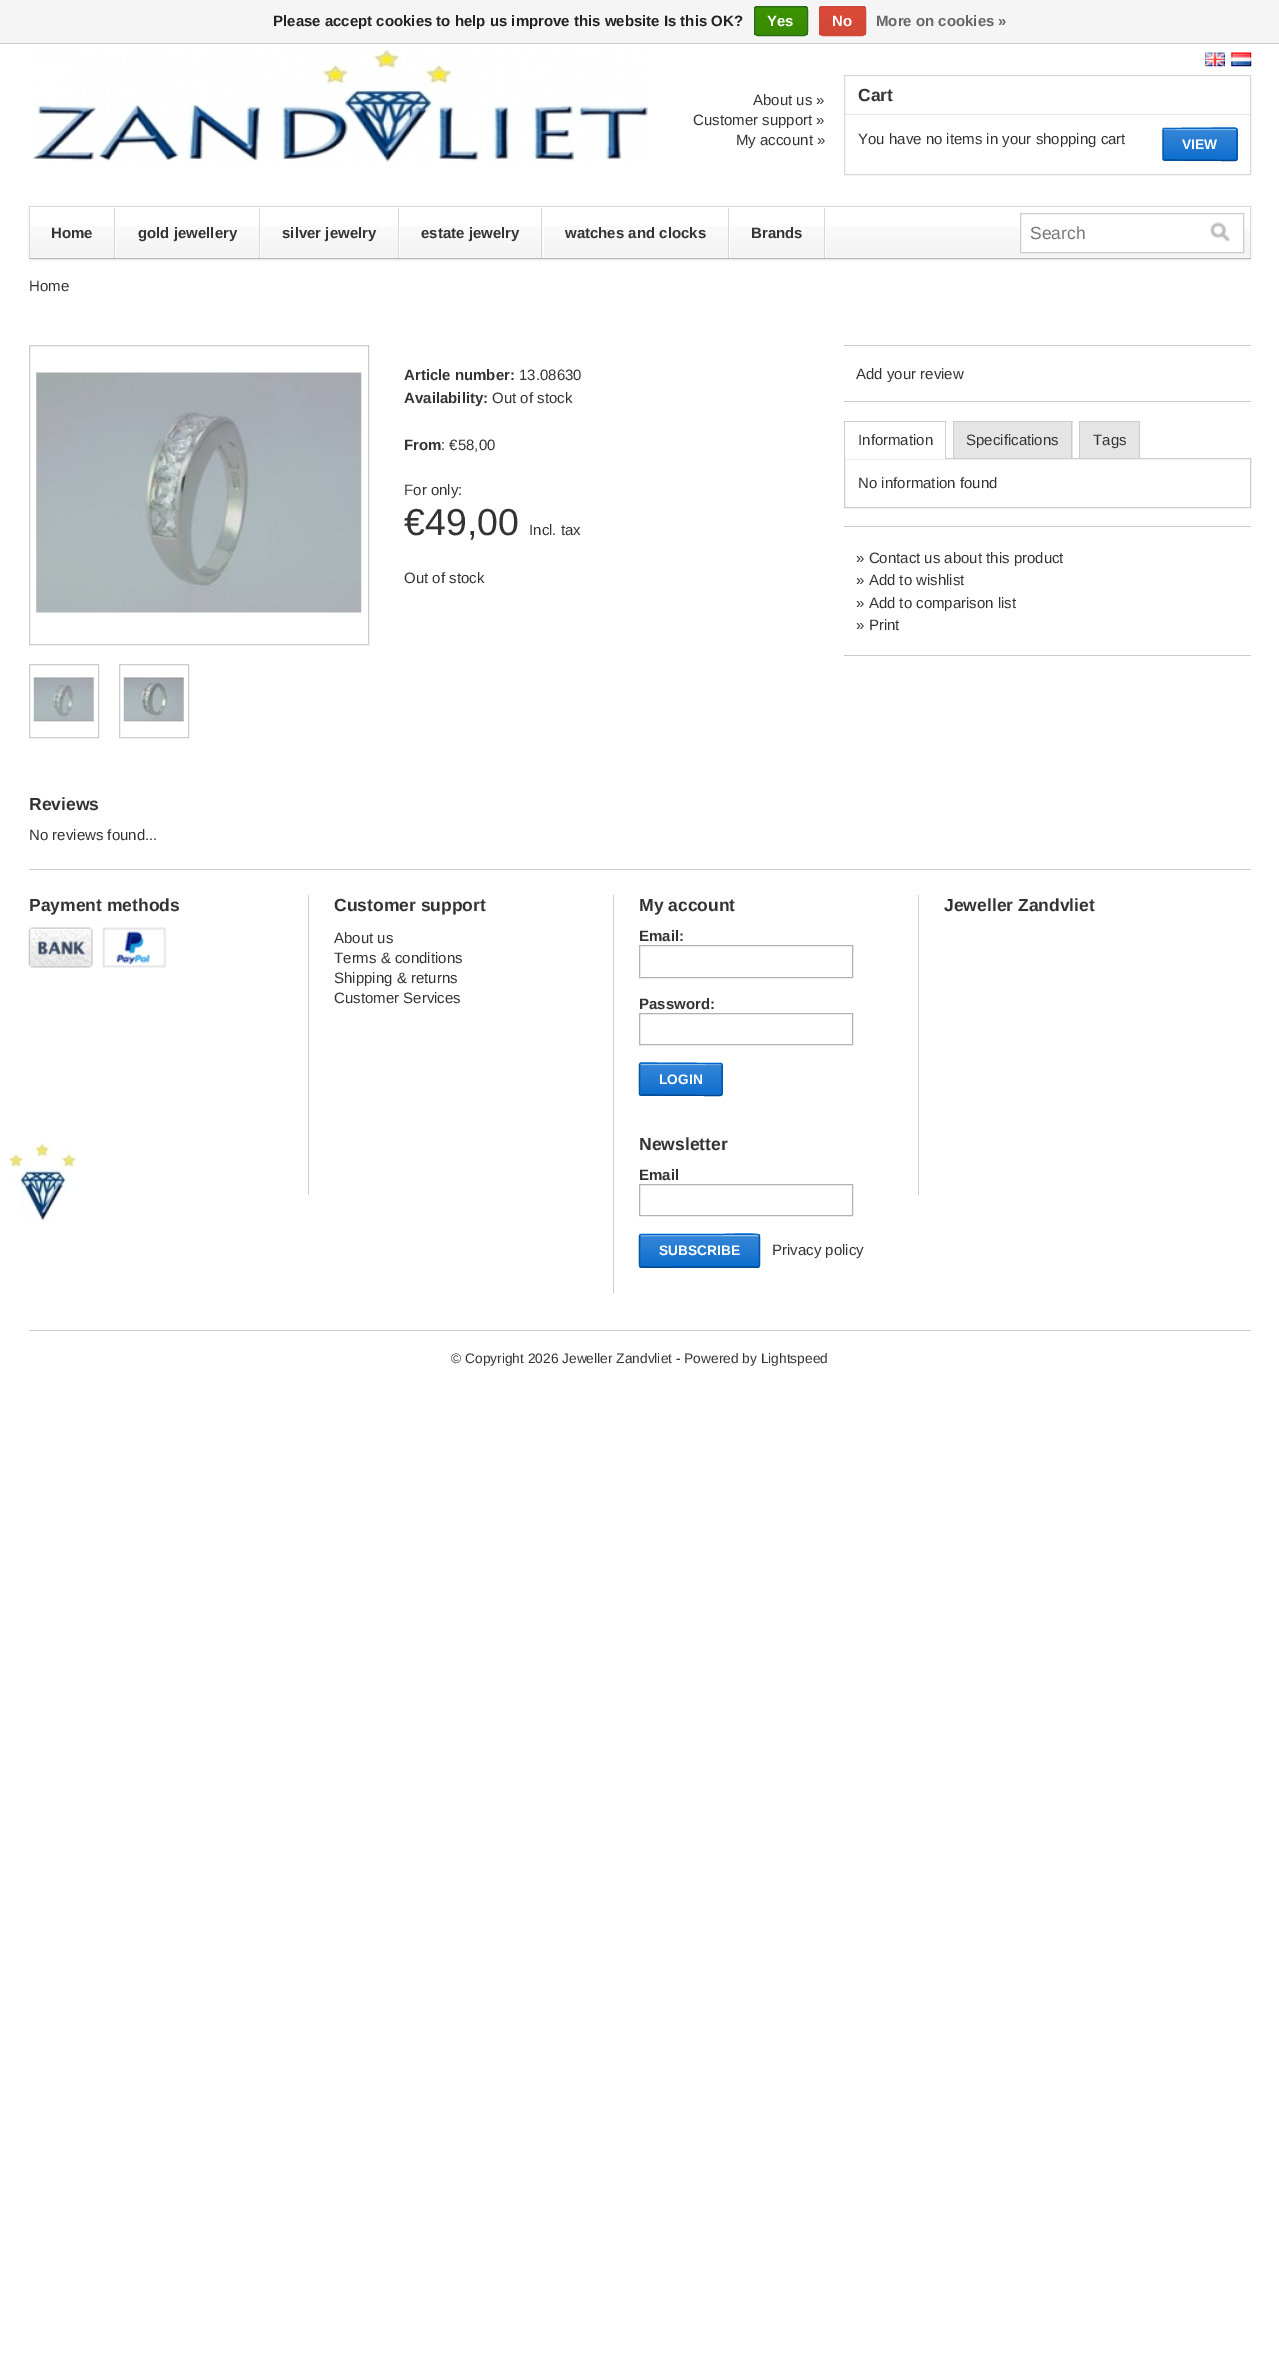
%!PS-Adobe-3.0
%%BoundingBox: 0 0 1279 2356
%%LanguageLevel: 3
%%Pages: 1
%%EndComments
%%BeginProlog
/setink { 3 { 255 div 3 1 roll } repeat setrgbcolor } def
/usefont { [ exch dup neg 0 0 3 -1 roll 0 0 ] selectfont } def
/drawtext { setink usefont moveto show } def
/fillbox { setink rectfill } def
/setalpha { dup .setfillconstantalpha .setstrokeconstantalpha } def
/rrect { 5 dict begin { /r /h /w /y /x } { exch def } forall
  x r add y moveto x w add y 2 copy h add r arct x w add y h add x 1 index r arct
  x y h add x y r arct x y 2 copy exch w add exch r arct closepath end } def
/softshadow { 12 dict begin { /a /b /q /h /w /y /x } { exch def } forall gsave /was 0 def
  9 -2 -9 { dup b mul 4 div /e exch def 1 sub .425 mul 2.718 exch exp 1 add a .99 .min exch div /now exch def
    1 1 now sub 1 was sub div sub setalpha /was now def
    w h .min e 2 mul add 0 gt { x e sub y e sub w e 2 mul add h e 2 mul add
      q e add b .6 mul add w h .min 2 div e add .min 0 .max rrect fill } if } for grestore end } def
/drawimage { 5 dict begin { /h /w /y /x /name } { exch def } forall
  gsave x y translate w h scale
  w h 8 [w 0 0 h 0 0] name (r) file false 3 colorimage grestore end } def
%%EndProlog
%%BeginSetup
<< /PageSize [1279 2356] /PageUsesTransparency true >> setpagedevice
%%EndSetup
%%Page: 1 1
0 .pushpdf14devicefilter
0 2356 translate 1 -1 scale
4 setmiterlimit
0 0 1279 2356 255 255 255 fillbox
(assets/img1.rgb) 7 1142 70 79 drawimage
0 0 1279 43 245 245 245 fillbox
0 43 1279 1 204 204 204 fillbox
(Please accept cookies to help us improve this website Is this OK?) 273 26 /LiberationSans-Bold 15 34 34 34 drawtext
gsave
754 6 54 30 4 rrect clip newpath
gsave 754 6 moveto 808 6 lineto 808 8 lineto 754 8 lineto closepath clip newpath
<< /ShadingType 2 /ColorSpace /DeviceRGB /Coords [781 -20 781 7.5] /Extend [true true] /Function << /FunctionType 2 /Domain [0 1] /C0 [0.235 0.576 0] /C1 [0.224 0.541 0] /N 1 >> >> shfill grestore
gsave 754 8 moveto 808 8 lineto 808 35 lineto 754 35 lineto closepath clip newpath
<< /ShadingType 2 /ColorSpace /DeviceRGB /Coords [781 7.5 781 35] /Extend [true true] /Function << /FunctionType 2 /Domain [0 1] /C0 [0.235 0.576 0] /C1 [0.224 0.541 0] /N 1 >> >> shfill grestore
grestore
41 105 29 setink
754.5 6.5 53 29 3.5 rrect stroke
(Yes) 767 26 /LiberationSans-Bold 15 255 255 255 drawtext
gsave
819 6 47 30 4 rrect clip newpath
gsave 819 6 moveto 866 6 lineto 866 8 lineto 819 8 lineto closepath clip newpath
<< /ShadingType 2 /ColorSpace /DeviceRGB /Coords [843 -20 843 7.5] /Extend [true true] /Function << /FunctionType 2 /Domain [0 1] /C0 [0.863 0.29 0.22] /C1 [0.82 0.282 0.212] /N 1 >> >> shfill grestore
gsave 819 8 moveto 866 8 lineto 866 35 lineto 819 35 lineto closepath clip newpath
<< /ShadingType 2 /ColorSpace /DeviceRGB /Coords [843 7.5 843 35] /Extend [true true] /Function << /FunctionType 2 /Domain [0 1] /C0 [0.863 0.29 0.22] /C1 [0.82 0.282 0.212] /N 1 >> >> shfill grestore
grestore
209 72 54 setink
819.5 6.5 46 29 3.5 rrect stroke
(No) 832 26 /LiberationSans-Bold 15 255 255 255 drawtext
(More on cookies ») 876 26 /LiberationSans-Bold 15 102 102 102 drawtext
(assets/img2.rgb) 32 49 617 113 drawimage
(assets/img3.rgb) 1205 52 20 15 drawimage
(assets/img4.rgb) 1231 52 21 15 drawimage
(About us ») 753 105 /LiberationSans-Regular 15 51 51 51 drawtext
(Customer support ») 693 125 /LiberationSans-Regular 15 51 51 51 drawtext
(My account ») 736 145 /LiberationSans-Regular 15 51 51 51 drawtext
216 216 216 setink
844.5 75.5 406 99 rectstroke
845 114 405 1 230 230 230 fillbox
(Cart) 858 101 /LiberationSans-Bold 17.5 51 51 51 drawtext
(You have no items in your shopping cart) 858 144 /LiberationSans-Regular 15 51 51 51 drawtext
0 102 204 setink
1163 128 75 33 2.5 rrect fill
(assets/img5.rgb) 1163 128 75 33 drawimage
1.2 setlinewidth
1163.5 128.5 moveto 1223.5 128 lineto 1235 128 lineto 1236.5 128.5 lineto stroke
0 86 173 setink
1236.5 128.5 moveto 1237 130 lineto 1237 159 lineto 1236.5 160 lineto stroke
0 71 142 setink
1236.5 160 moveto 1235 160.5 lineto 1163.5 160 lineto stroke
0 86 173 setink
1163.5 160 moveto 1163 159 lineto 1163 130 lineto 1163.5 128.5 lineto stroke
(VIEW) 1182 149 /LiberationSans-Bold 13.75 255 255 255 drawtext
0 0 0 setink
29 208 1222 52 0 1 0.1 softshadow
30 207 1220 51 255 255 255 fillbox
(assets/img6.rgb) 30 226 1220 32 drawimage
29 206 1222 1 216 216 216 fillbox
1250 206 1 53 216 216 216 fillbox
29 258 1222 1 178 178 178 fillbox
29 206 1 53 216 216 216 fillbox
114 208 1 50 216 216 216 fillbox
(Home) 51 238 /LiberationSans-Bold 15 51 51 51 drawtext
259 208 1 50 216 216 216 fillbox
115 226 1 32 255 255 255 fillbox
(gold jewellery) 138 238 /LiberationSans-Bold 15 51 51 51 drawtext
398 208 1 50 216 216 216 fillbox
260 226 1 32 255 255 255 fillbox
(silver jewelry) 282 238 /LiberationSans-Bold 15 51 51 51 drawtext
541 208 1 50 216 216 216 fillbox
399 226 1 32 255 255 255 fillbox
(estate jewelry) 421 238 /LiberationSans-Bold 15 51 51 51 drawtext
728 208 1 50 216 216 216 fillbox
543 226 1 32 255 255 255 fillbox
(watches and clocks) 565 238 /LiberationSans-Bold 15 51 51 51 drawtext
824 208 1 50 216 216 216 fillbox
729 226 1 32 255 255 255 fillbox
(Brands) 751 238 /LiberationSans-Bold 15 51 51 51 drawtext
825 226 1 32 255 255 255 fillbox
1021 226 222 26 255 255 255 fillbox
204 204 204 setink
1 setlinewidth
1020.5 213.5 223 39 rectstroke
(Search) 1030 239 /LiberationSans-Regular 17.5 117 117 117 drawtext
(assets/img7.rgb) 1210 222 20 20 drawimage
(Home) 29 291 /LiberationSans-Regular 15 51 51 51 drawtext
204 204 204 setink
29.5 345.5 339 299 rectstroke
(assets/img8.rgb) 36 372 326 241 drawimage
29.5 664.5 69 73 rectstroke
(assets/img9.rgb) 33 677 61 45 drawimage
119.5 664.5 69 73 rectstroke
(assets/img10.rgb) 123 677 61 45 drawimage
(Article number:) 404 380 /LiberationSans-Bold 15 51 51 51 drawtext
(13.08630) 519 380 /LiberationSans-Regular 15 51 51 51 drawtext
(Availability:) 404 403 /LiberationSans-Bold 15 51 51 51 drawtext
(Out of stock) 492 403 /LiberationSans-Regular 15 51 51 51 drawtext
(From) 404 450 /LiberationSans-Bold 15 51 51 51 drawtext
(: €58,00) 441 450 /LiberationSans-Regular 15 51 51 51 drawtext
(For only:) 404 495 /LiberationSans-Regular 15 51 51 51 drawtext
(€49,00) 404 535 /LiberationSans-Regular 37.5 51 51 51 drawtext
(Incl. tax) 529 535 /LiberationSans-Regular 15 51 51 51 drawtext
(Out of stock) 404 583 /LiberationSans-Regular 15 51 51 51 drawtext
(Reviews) 29 810 /LiberationSans-Bold 17.5 51 51 51 drawtext
(No reviews found...) 29 840 /LiberationSans-Regular 15 51 51 51 drawtext
844 345 407 1 204 204 204 fillbox
844 401 407 1 204 204 204 fillbox
(Add your review) 856 379 /LiberationSans-Regular 15 51 51 51 drawtext
844 526 407 1 204 204 204 fillbox
844.5 458.5 406 49 rectstroke
845 458 100 1 255 255 255 fillbox
844 421 102 1 204 204 204 fillbox
945 421 1 38 204 204 204 fillbox
844 421 1 38 204 204 204 fillbox
(Information) 858 445 /LiberationSans-Regular 15 51 51 51 drawtext
954 422 119 36 229 229 229 fillbox
953 421 120 1 204 204 204 fillbox
1071 421 1 37 204 204 204 fillbox
953 421 1 37 204 204 204 fillbox
(Specifications) 966 445 /LiberationSans-Regular 15 51 51 51 drawtext
1080 422 59 36 229 229 229 fillbox
1079 421 61 1 204 204 204 fillbox
1139 421 1 37 204 204 204 fillbox
1079 421 1 37 204 204 204 fillbox
(Tags) 1093 445 /LiberationSans-Regular 15 51 51 51 drawtext
(No information found) 858 488 /LiberationSans-Regular 15 51 51 51 drawtext
844 655 407 1 204 204 204 fillbox
(» Contact us about this product) 856 563 /LiberationSans-Regular 15 51 51 51 drawtext
(» Add to wishlist) 856 585 /LiberationSans-Regular 15 51 51 51 drawtext
(» Add to comparison list) 856 608 /LiberationSans-Regular 15 51 51 51 drawtext
(» Print) 856 630 /LiberationSans-Regular 15 51 51 51 drawtext
29 869 1222 1 204 204 204 fillbox
(Payment methods) 29 911 /LiberationSans-Bold 17.5 51 51 51 drawtext
(assets/img11.rgb) 28 927 65 41 drawimage
(assets/img12.rgb) 102 927 65 41 drawimage
308 895 1 300 204 204 204 fillbox
(Customer support) 334 911 /LiberationSans-Bold 17.5 51 51 51 drawtext
(About us) 334 943 /LiberationSans-Regular 15 51 51 51 drawtext
(Terms & conditions) 334 963 /LiberationSans-Regular 15 51 51 51 drawtext
(Shipping & returns) 334 983 /LiberationSans-Regular 15 51 51 51 drawtext
(Customer Services) 334 1003 /LiberationSans-Regular 15 51 51 51 drawtext
613 895 1 398 204 204 204 fillbox
(My account) 639 911 /LiberationSans-Bold 17.5 51 51 51 drawtext
(Email:) 639 941 /LiberationSans-Bold 15 51 51 51 drawtext
178 178 178 setink
639.5 945.5 213 32 rectstroke
(Password:) 639 1009 /LiberationSans-Bold 15 51 51 51 drawtext
178 178 178 setink
639.5 1013.5 213 31 rectstroke
0 102 204 setink
639 1063 84 33 2.5 rrect fill
(assets/img13.rgb) 639 1063 84 33 drawimage
1.2 setlinewidth
640 1063.5 moveto 641 1063 lineto 721.5 1063.5 lineto stroke
0 86 173 setink
721.5 1063.5 moveto 722 1065 lineto 722 1094 lineto 721.5 1095 lineto stroke
0 71 142 setink
721.5 1095 moveto 720 1095.5 lineto 640 1095 lineto stroke
0 86 173 setink
640 1095 moveto 639.5 1094 lineto 639.5 1065 lineto 640 1063.5 lineto stroke
(LOGIN) 659 1084 /LiberationSans-Bold 13.75 255 255 255 drawtext
(Newsletter) 639 1150 /LiberationSans-Bold 17.5 51 51 51 drawtext
(Email) 639 1180 /LiberationSans-Bold 15 51 51 51 drawtext
178 178 178 setink
1 setlinewidth
639.5 1184.5 213 31 rectstroke
0 102 204 setink
639 1234 121 34 2.5 rrect fill
(assets/img14.rgb) 639 1235 121 32 drawimage
1.2 setlinewidth
640 1235 moveto 641 1234.5 lineto 719 1234.5 lineto 721.5 1234.5 757 1233 759 1235 curveto stroke
0 86 173 setink
759 1235 moveto 759.5 1236 lineto 759.5 1265 lineto 759 1266.5 lineto stroke
0 71 142 setink
759 1266.5 moveto 757.5 1267 lineto 680 1267 lineto 677 1267 641.5 1268 640 1266.5 curveto stroke
0 86 173 setink
640 1266.5 moveto 639.5 1265 lineto 639.5 1236 lineto 640 1235 lineto stroke
(SUBSCRIBE) 659 1255 /LiberationSans-Bold 13.75 255 255 255 drawtext
(Privacy policy) 772 1255 /LiberationSans-Regular 15 51 51 51 drawtext
918 895 1 300 204 204 204 fillbox
(Jeweller Zandvliet) 944 911 /LiberationSans-Bold 17.5 51 51 51 drawtext
29 1330 1222 1 204 204 204 fillbox
(© Copyright 2026 Jeweller Zandvliet - Powered by Lightspeed) 451 1363 /LiberationSans-Regular 13.75 51 51 51 drawtext
.poppdf14devicefilter showpage
%%EOF
